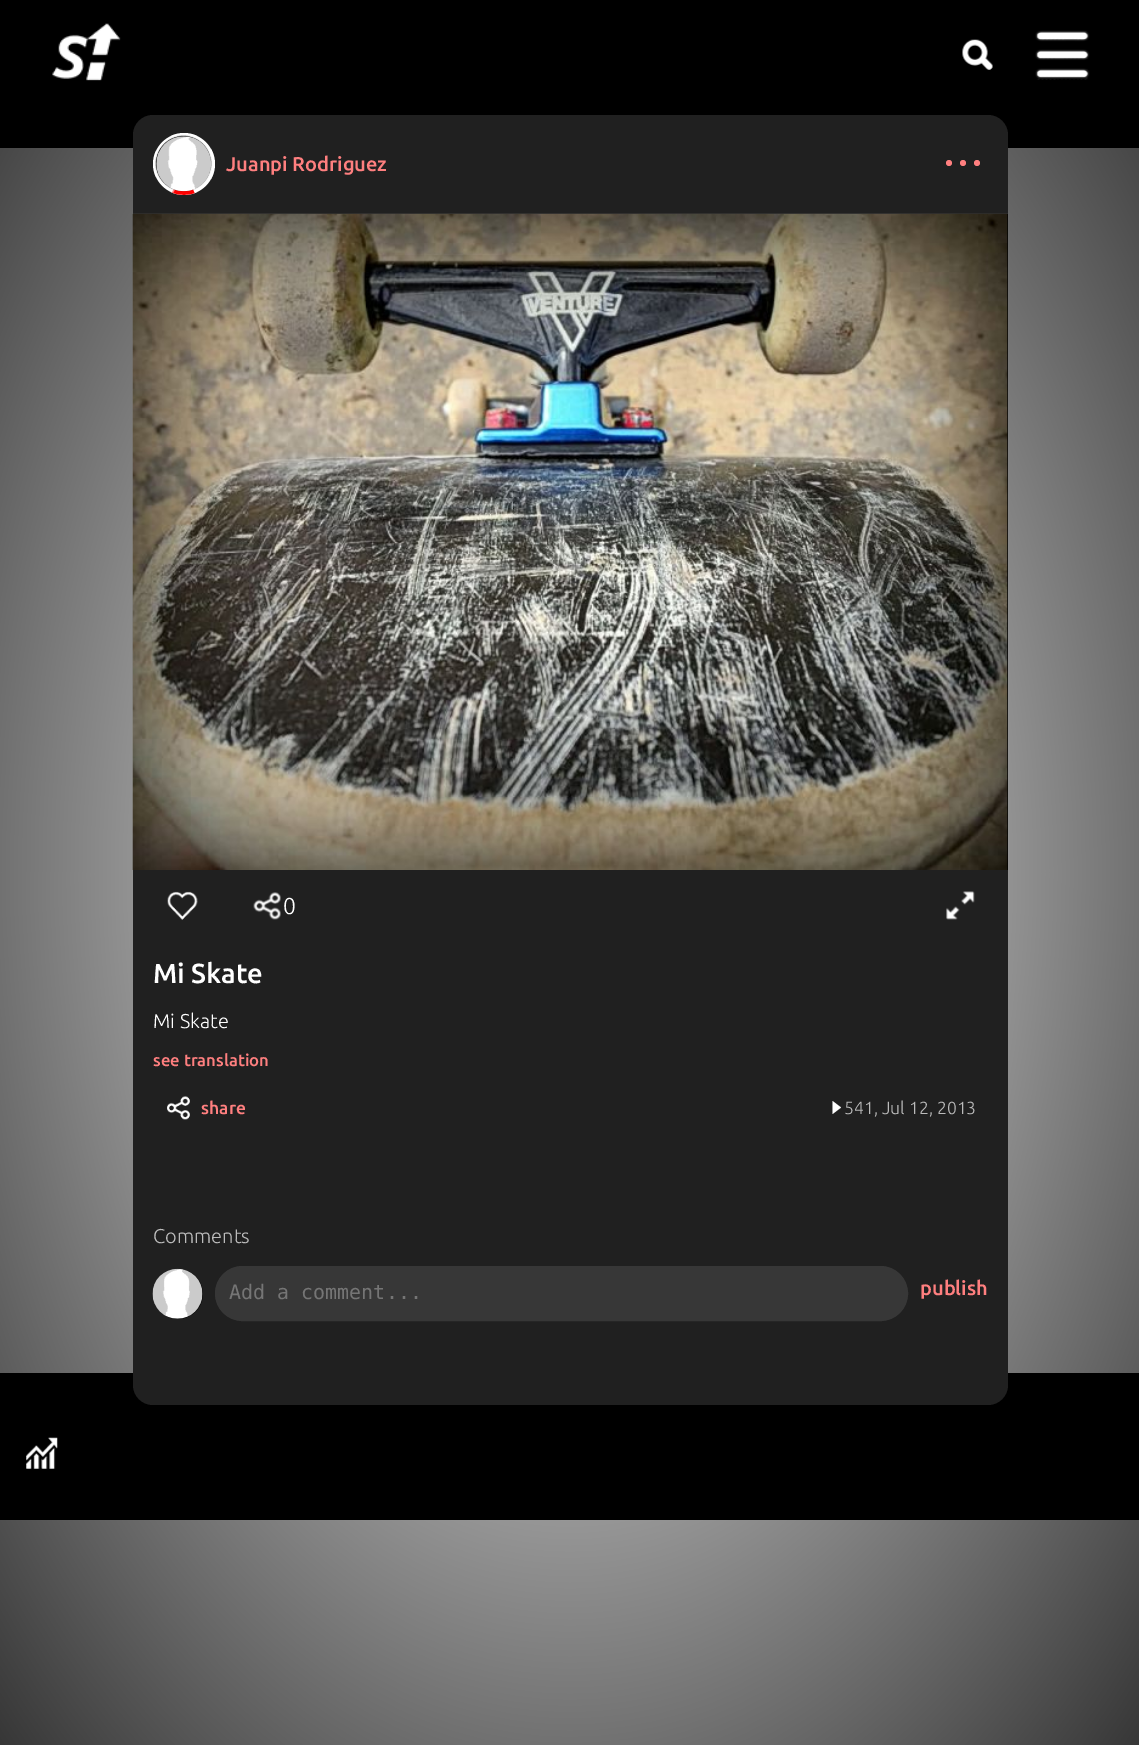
%!PS-Adobe-3.0
%%BoundingBox: 0 0 1139 1745
%%LanguageLevel: 3
%%Pages: 1
%%EndComments
%%BeginProlog
/setink { 3 { 255 div 3 1 roll } repeat setrgbcolor } def
/usefont { [ exch dup neg 0 0 3 -1 roll 0 0 ] selectfont } def
/drawtext { setink usefont moveto show } def
/fillbox { setink rectfill } def
/setalpha { dup .setfillconstantalpha .setstrokeconstantalpha } def
/disc { newpath 0 360 arc closepath } def
/rrect { 5 dict begin { /r /h /w /y /x } { exch def } forall
  x r add y moveto x w add y 2 copy h add r arct x w add y h add x 1 index r arct
  x y h add x y r arct x y 2 copy exch w add exch r arct closepath end } def
/softshadow { 12 dict begin { /a /b /q /h /w /y /x } { exch def } forall gsave /was 0 def
  9 -2 -9 { dup b mul 4 div /e exch def 1 sub .425 mul 2.718 exch exp 1 add a .99 .min exch div /now exch def
    1 1 now sub 1 was sub div sub setalpha /was now def
    w h .min e 2 mul add 0 gt { x e sub y e sub w e 2 mul add h e 2 mul add
      q e add b .6 mul add w h .min 2 div e add .min 0 .max rrect fill } if } for grestore end } def
/drawimage { 5 dict begin { /h /w /y /x /name } { exch def } forall
  gsave x y translate w h scale
  w h 8 [w 0 0 h 0 0] name (r) file false 3 colorimage grestore end } def
%%EndProlog
%%BeginSetup
<< /PageSize [1139 1745] /PageUsesTransparency true >> setpagedevice
%%EndSetup
%%Page: 1 1
0 .pushpdf14devicefilter
0 1745 translate 1 -1 scale
4 setmiterlimit
0 0 1139 1745 255 255 255 fillbox
gsave 0 148 moveto 1139 148 lineto 1139 1745 lineto 0 1745 lineto closepath clip newpath 570 873 translate 806 1234 scale
<< /ShadingType 3 /ColorSpace /DeviceRGB /Coords [0 0 0 0 0 1] /Extend [true true] /Function << /FunctionType 2 /Domain [0 1] /C0 [1 1 1] /C1 [0.216 0.216 0.216] /N 1 >> >> shfill grestore
0 0 1139 148 0 0 0 fillbox
(assets/img1.rgb) 52 23 69 58 drawimage
(assets/img2.rgb) 962 39 31 31 drawimage
(assets/img3.rgb) 1035 30 55 50 drawimage
0 1373 1139 147 0 0 0 fillbox
32 32 32 setink
133 115 875 1290 20 rrect fill
255 255 255 setink
184 164 31 disc fill
255 127 127 setink
184 164 moveto 173.5 193 lineto 172.5 193 lineto closepath fill
0.5 setalpha
255 0 0 setink
184 164 moveto 172.5 193 lineto 172 192.5 lineto closepath fill
1 setalpha
184 164 moveto 194.5 193 lineto 188 195.5 180 195.5 173.5 193 curveto closepath fill
32 32 32 setink
156 136 55 55 27.5 0.5 1 softshadow
0 0 0 setink
183.5 163.5 27.5 disc fill
(assets/img4.rgb) 156 136 55 56 drawimage
(Juanpi Rodriguez) 226 171 /Ubuntu-Medium 20 255 127 127 drawtext
949 163 3 disc fill
963 163 3 disc fill
977 163 3 disc fill
1007 214 1 656 0 0 0 fillbox
133 213 875 1 43 43 43 fillbox
(assets/img5.rgb) 132 213 876 657 drawimage
(assets/img6.rgb) 132 213 876 657 drawimage
(assets/img7.rgb) 132 214 876 656 drawimage
(assets/img8.rgb) 167 891 31 29 drawimage
(assets/img9.rgb) 253 892 28 28 drawimage
(0) 283 914 /Ubuntu-Light 23 255 255 255 drawtext
(assets/img10.rgb) 946 891 29 29 drawimage
(Mi Skate) 153 983 /Ubuntu-Medium 27.5 255 255 255 drawtext
(Mi Skate) 153 1028 /Ubuntu-Light 20 255 255 255 drawtext
(see translation) 153 1066 /Ubuntu-Medium 16.75 255 127 127 drawtext
(assets/img11.rgb) 167 1096 23 24 drawimage
(share) 201 1114 /Ubuntu-Medium 17.5 255 127 127 drawtext
255 255 255 setink
832.5 1114 moveto 832.5 1101 lineto 841 1107.5 lineto closepath fill
(541, Jul 12, 2013) 844 1114 /Ubuntu-Light 17.5 187 187 187 drawtext
(Comments) 153 1243 /Ubuntu-Light 20 187 187 187 drawtext
0 0 0 setink
178 1294 25 disc fill
(assets/img12.rgb) 152 1268 51 51 drawimage
55 55 55 setink
215.5 1266.5 692 54 27 rrect gsave fill grestore
stroke
(Add a comment...) 229 1299 /DejaVuSansMono-Regular 20 117 117 117 drawtext
(publish) 920 1295 /Ubuntu-Medium 20 255 127 127 drawtext
(assets/img13.rgb) 26 1437 32 32 drawimage
.poppdf14devicefilter showpage
%%EOF
